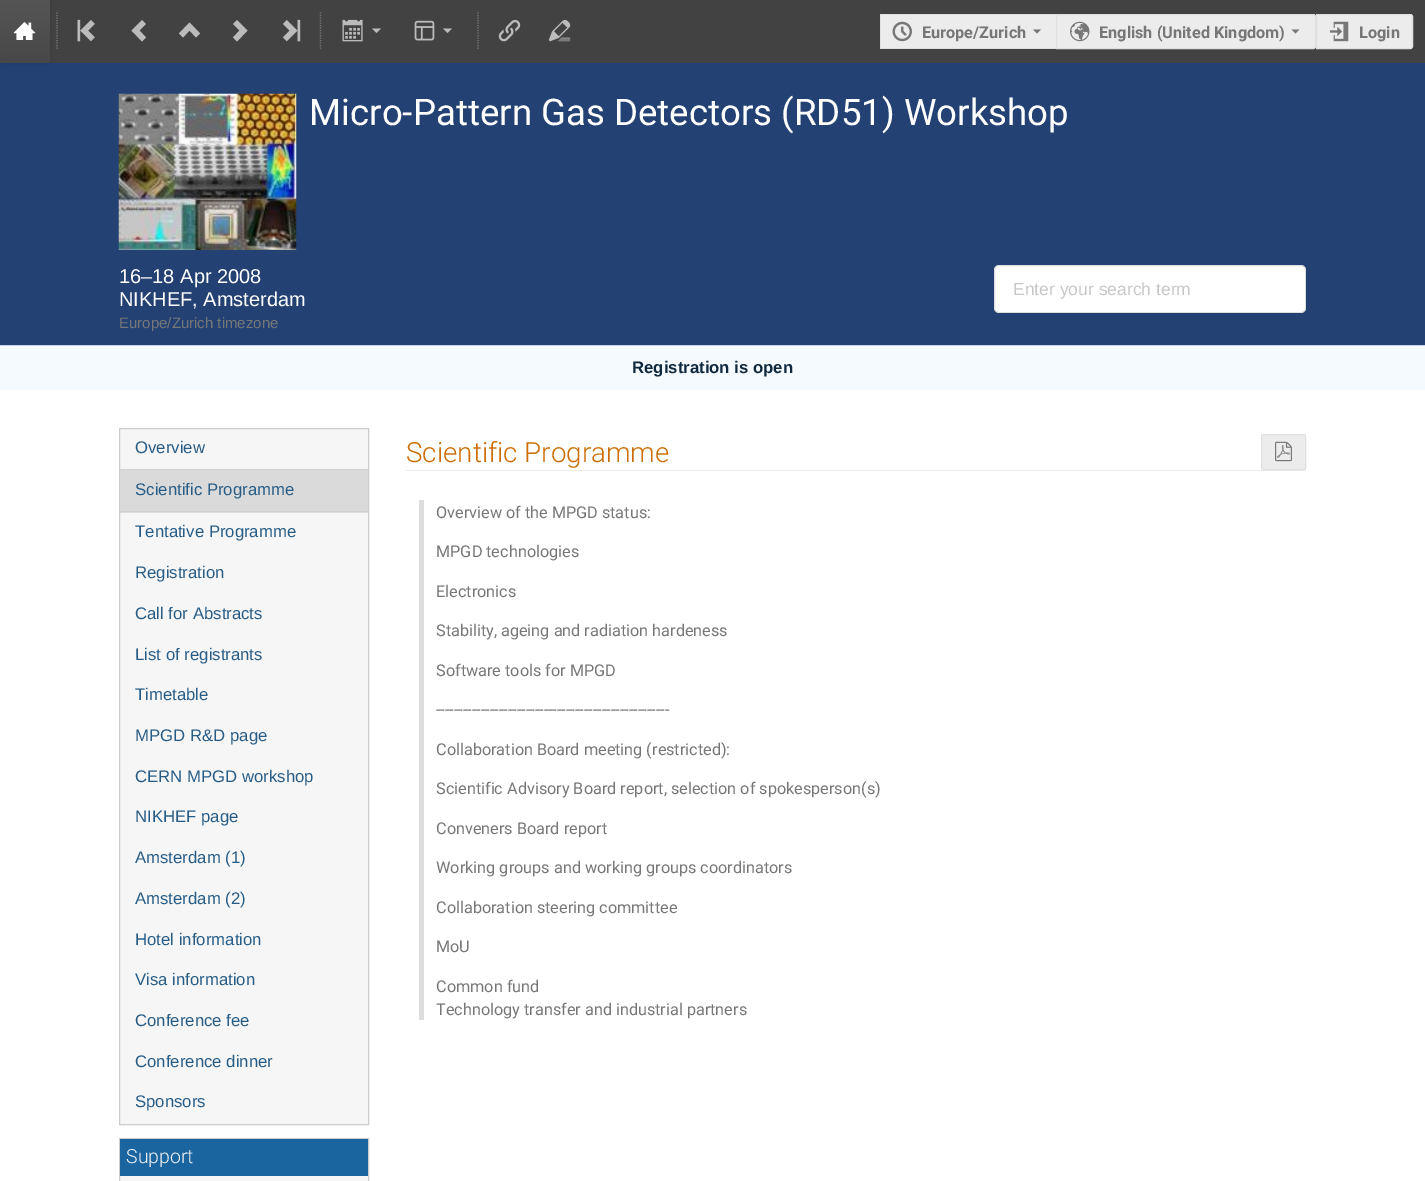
%!PS-Adobe-3.0
%%BoundingBox: 0 0 1425 1181
%%LanguageLevel: 3
%%Pages: 1
%%EndComments
%%BeginProlog
/setink { 3 { 255 div 3 1 roll } repeat setrgbcolor } def
/usefont { [ exch dup neg 0 0 3 -1 roll 0 0 ] selectfont } def
/drawtext { setink usefont moveto show } def
/fillbox { setink rectfill } def
/setalpha { dup .setfillconstantalpha .setstrokeconstantalpha } def
/rrect { 5 dict begin { /r /h /w /y /x } { exch def } forall
  x r add y moveto x w add y 2 copy h add r arct x w add y h add x 1 index r arct
  x y h add x y r arct x y 2 copy exch w add exch r arct closepath end } def
/softshadow { 12 dict begin { /a /b /q /h /w /y /x } { exch def } forall gsave /was 0 def
  9 -2 -9 { dup b mul 4 div /e exch def 1 sub .425 mul 2.718 exch exp 1 add a .99 .min exch div /now exch def
    1 1 now sub 1 was sub div sub setalpha /was now def
    w h .min e 2 mul add 0 gt { x e sub y e sub w e 2 mul add h e 2 mul add
      q e add b .6 mul add w h .min 2 div e add .min 0 .max rrect fill } if } for grestore end } def
/drawimage { 5 dict begin { /h /w /y /x /name } { exch def } forall
  gsave x y translate w h scale
  w h 8 [w 0 0 h 0 0] name (r) file false 3 colorimage grestore end } def
%%EndProlog
%%BeginSetup
<< /PageSize [1425 1181] /PageUsesTransparency true >> setpagedevice
%%EndSetup
%%Page: 1 1
0 .pushpdf14devicefilter
0 1181 translate 1 -1 scale
4 setmiterlimit
0 0 1425 1181 255 255 255 fillbox
50 0 1375 63 66 66 66 fillbox
0 63 1425 282 35 65 115 fillbox
20 20 20 setink
1 1 50 63 0 2.5 0.1 softshadow
gsave 0 0 moveto 50 0 lineto 50 63 lineto 0 63 lineto closepath clip newpath
<< /ShadingType 2 /ColorSpace /DeviceRGB /Coords [25 0 25 63] /Extend [true true] /Function << /FunctionType 2 /Domain [0 1] /C0 [0.333 0.333 0.333] /C1 [0.282 0.282 0.282] /N 1 >> >> shfill grestore
(assets/img1.rgb) 13 22 23 18 drawimage
119 119 119 setink
1.2 setlinewidth
[1.25 1.25] 0 setdash
57 12.5 moveto 57 50 lineto stroke
(assets/img2.rgb) 77 19 18 23 drawimage
187 187 187 setink
142 41.5 moveto 146 37.5 lineto 139.5 30.5 lineto 146 24 lineto 142 20 lineto 131.5 30.5 lineto closepath fill
179 33.5 moveto 183 37.5 lineto 189.5 30.5 lineto 196 37.5 lineto 200 33.5 lineto 189.5 22.5 lineto closepath fill
237 20 moveto 233 24 lineto 239.5 30.5 lineto 233 37.5 lineto 237 41.5 lineto 247.5 30.5 lineto closepath fill
(assets/img3.rgb) 282 19 19 23 drawimage
119 119 119 setink
320.5 12.5 moveto 320.5 50 lineto stroke
(assets/img4.rgb) 342 19 21 23 drawimage
187 187 187 setink
372 28.5 moveto 376.5 33 lineto 381 28.5 lineto closepath fill
(assets/img5.rgb) 414 20 21 21 drawimage
443 28.5 moveto 447.5 33 lineto 452 28.5 lineto closepath fill
119 119 119 setink
478 12.5 moveto 478 50 lineto stroke
(assets/img6.rgb) 498 19 23 23 drawimage
(assets/img7.rgb) 548 19 23 23 drawimage
881 15 175 33 236 236 236 fillbox
880 14 176 1 223 223 223 fillbox
880 48 176 1 223 223 223 fillbox
880 14 1 35 223 223 223 fillbox
(assets/img8.rgb) 892 21 20 21 drawimage
(Europe/Zurich) 922 38 /Roboto-Bold 16.25 119 119 119 drawtext
1033 29.5 moveto 1037 33.5 lineto 1041 29.5 lineto closepath fill
236 236 236 setink
1056.5 14.5 moveto 1313.5 14.5 lineto 1314.5 14.5 1315.5 15.5 1315.5 16.5 curveto 1315.5 46.5 lineto 1315.5 47.5 1314.5 48.5 1313.5 48.5 curveto 1056.5 48.5 lineto closepath gsave fill grestore
223 223 223 setink
1 setlinewidth
[] 0 setdash
stroke
(assets/img9.rgb) 1070 21 20 21 drawimage
(English \(United Kingdom\)) 1099 38 /Roboto-Bold 16.25 119 119 119 drawtext
1291.5 29.5 moveto 1295.5 33.5 lineto 1299.5 29.5 lineto closepath fill
236 236 236 setink
1316.5 14.5 moveto 1410.5 14.5 lineto 1411.5 14.5 1412.5 15.5 1412.5 16.5 curveto 1412.5 46.5 lineto 1412.5 47.5 1411.5 48.5 1410.5 48.5 curveto 1316.5 48.5 lineto closepath gsave fill grestore
223 223 223 setink
stroke
(assets/img10.rgb) 1330 21 19 21 drawimage
(Login) 1359 38 /Roboto-Bold 16.25 119 119 119 drawtext
(assets/img11.rgb) 118 93 179 157 drawimage
(Micro-Pattern Gas Detectors \(RD51\) Workshop) 309 125 /Roboto-Regular 36.7 255 255 255 drawtext
(16–18 Apr 2008) 119 283 /LiberationSans-Regular 20 255 255 255 drawtext
(NIKHEF, Amsterdam) 119 306 /LiberationSans-Regular 20 255 255 255 drawtext
(Europe/Zurich timezone) 119 328 /LiberationSans-Regular 15 119 119 119 drawtext
255 255 255 setink
994 265 312 48 5 rrect fill
0.15 setalpha
34 36 38 setink
994.5 265.5 311 47 4.5 rrect stroke
1 setalpha
(Enter your search term) 1013 295 /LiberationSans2-Regular 17.5 199 199 199 drawtext
0 346 1425 44 245 250 255 fillbox
0 345 1425 1 194 214 231 fillbox
(Registration is open) 632 373 /LiberationSans-Bold 16.75 15 40 61 drawtext
246 246 246 setink
119.5 428.5 moveto 368.5 428.5 lineto 368.5 1124.5 lineto 119.5 1124.5 lineto closepath gsave fill grestore
204 204 204 setink
stroke
(Overview) 135 453 /LiberationSans2-Regular 16.75 39 92 134 drawtext
120 470 248 43 218 218 218 fillbox
120 469 248 1 208 208 208 fillbox
120 511 248 1 208 208 208 fillbox
(Scientific Programme) 135 495 /LiberationSans2-Regular 16.75 39 92 134 drawtext
(Tentative Programme) 135 537 /LiberationSans2-Regular 16.75 39 92 134 drawtext
(Registration) 135 578 /LiberationSans2-Regular 16.75 39 92 134 drawtext
(Call for Abstracts) 135 619 /LiberationSans2-Regular 16.75 39 92 134 drawtext
(List of registrants) 135 660 /LiberationSans2-Regular 16.75 39 92 134 drawtext
(Timetable) 135 700 /LiberationSans2-Regular 16.75 39 92 134 drawtext
(MPGD R&D page) 135 741 /LiberationSans2-Regular 16.75 39 92 134 drawtext
(CERN MPGD workshop) 135 782 /LiberationSans2-Regular 16.75 39 92 134 drawtext
(NIKHEF page) 135 822 /LiberationSans2-Regular 16.75 39 92 134 drawtext
(Amsterdam \(1\)) 135 863 /LiberationSans2-Regular 16.75 39 92 134 drawtext
(Amsterdam \(2\)) 135 904 /LiberationSans2-Regular 16.75 39 92 134 drawtext
(Hotel information) 135 945 /LiberationSans2-Regular 16.75 39 92 134 drawtext
(Visa information) 135 985 /LiberationSans2-Regular 16.75 39 92 134 drawtext
(Conference fee) 135 1026 /LiberationSans2-Regular 16.75 39 92 134 drawtext
(Conference dinner) 135 1067 /LiberationSans2-Regular 16.75 39 92 134 drawtext
(Sponsors) 135 1107 /LiberationSans2-Regular 16.75 39 92 134 drawtext
120 1176 248 5 246 246 246 fillbox
204 204 204 setink
119.5 1138.5 249 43 rectstroke
120 1139 248 37 26 100 160 fillbox
(Support) 126 1163 /Roboto-Light 19.5 243 243 243 drawtext
406 470 900 1 235 235 235 fillbox
(Scientific Programme) 406 462 /Roboto-Light 27.75 203 109 4 drawtext
236 236 236 setink
1261.5 434.5 44 35 2 rrect gsave fill grestore
223 223 223 setink
stroke
(assets/img12.rgb) 1275 441 17 21 drawimage
419 500 5 520 221 221 221 fillbox
(Overview of the MPGD status:) 436 518 /Roboto-Regular 16.25 119 119 119 drawtext
(MPGD technologies) 436 557 /Roboto-Regular 16.25 119 119 119 drawtext
(Electronics) 436 597 /Roboto-Regular 16.25 119 119 119 drawtext
(Stability, ageing and radiation hardeness) 436 636 /Roboto-Regular 16.25 119 119 119 drawtext
(Software tools for MPGD) 436 676 /Roboto-Regular 16.25 119 119 119 drawtext
(----------------------------------------------------) 436 715 /Roboto-Regular 16.25 119 119 119 drawtext
(Collaboration Board meeting \(restricted\):) 436 755 /Roboto-Regular 16.25 119 119 119 drawtext
(Scientific Advisory Board report, selection of spokesperson\(s\)) 436 794 /Roboto-Regular 16.25 119 119 119 drawtext
(Conveners Board report) 436 834 /Roboto-Regular 16.25 119 119 119 drawtext
(Working groups and working groups coordinators) 436 873 /Roboto-Regular 16.25 119 119 119 drawtext
(Collaboration steering committee) 436 913 /Roboto-Regular 16.25 119 119 119 drawtext
(MoU) 436 952 /Roboto-Regular 16.25 119 119 119 drawtext
(Common fund) 436 992 /Roboto-Regular 16.25 119 119 119 drawtext
(Technology transfer and industrial partners) 436 1015 /Roboto-Regular 16.25 119 119 119 drawtext
.poppdf14devicefilter showpage
%%EOF
